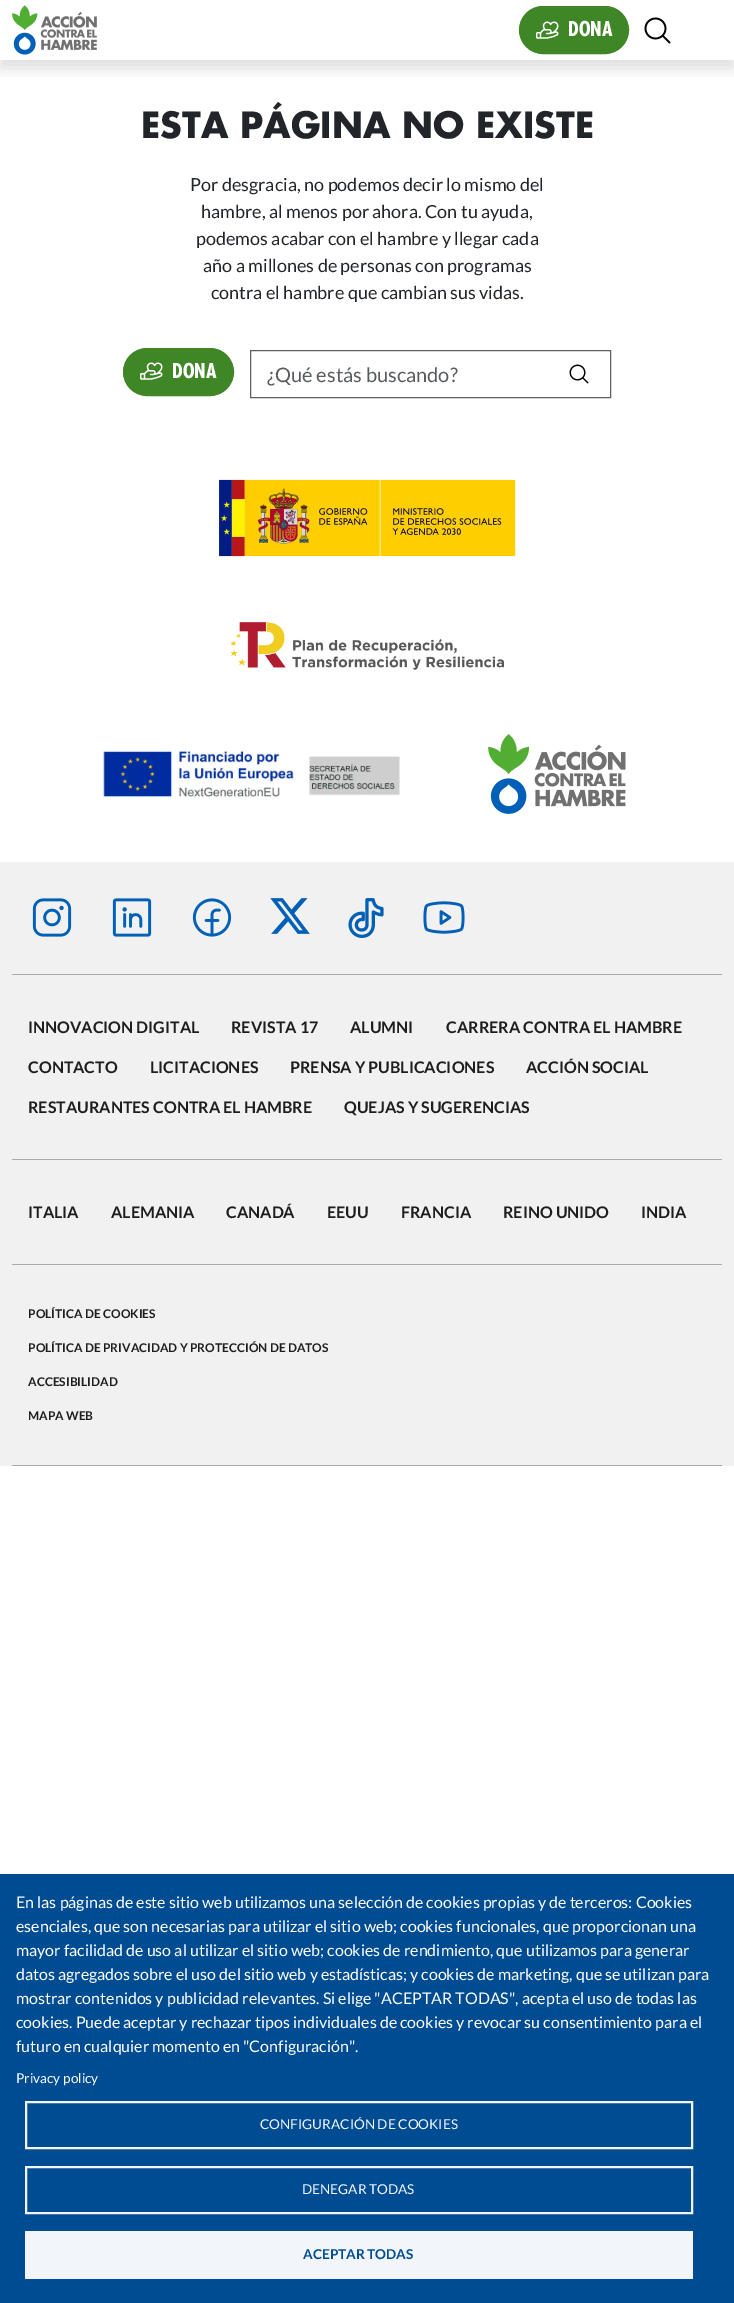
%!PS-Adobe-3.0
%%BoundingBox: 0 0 734 2303
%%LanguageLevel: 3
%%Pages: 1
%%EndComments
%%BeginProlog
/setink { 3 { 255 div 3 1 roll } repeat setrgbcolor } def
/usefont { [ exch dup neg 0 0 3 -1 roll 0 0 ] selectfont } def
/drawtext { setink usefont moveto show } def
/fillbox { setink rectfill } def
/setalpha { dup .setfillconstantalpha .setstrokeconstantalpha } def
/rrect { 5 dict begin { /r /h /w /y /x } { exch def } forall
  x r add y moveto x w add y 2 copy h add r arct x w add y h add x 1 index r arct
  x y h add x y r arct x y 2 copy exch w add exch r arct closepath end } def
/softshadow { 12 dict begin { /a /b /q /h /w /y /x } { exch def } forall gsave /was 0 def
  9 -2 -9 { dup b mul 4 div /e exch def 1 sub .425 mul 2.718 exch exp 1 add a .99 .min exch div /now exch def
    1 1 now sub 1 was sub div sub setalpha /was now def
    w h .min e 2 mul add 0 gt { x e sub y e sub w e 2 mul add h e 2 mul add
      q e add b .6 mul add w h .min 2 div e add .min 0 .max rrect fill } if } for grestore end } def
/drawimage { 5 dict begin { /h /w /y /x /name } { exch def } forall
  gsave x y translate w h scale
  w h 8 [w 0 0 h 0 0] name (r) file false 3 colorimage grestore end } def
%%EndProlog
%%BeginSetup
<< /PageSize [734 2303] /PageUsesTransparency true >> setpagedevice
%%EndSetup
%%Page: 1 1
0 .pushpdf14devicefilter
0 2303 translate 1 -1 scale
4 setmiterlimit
0 0 734 2303 255 255 255 fillbox
gsave
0 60 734 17 rectclip
30 30 30 setink
0 8 734 60 0 8 0.15 softshadow
grestore
(assets/img1.rgb) 12 5 85 50 drawimage
63 134 39 setink
519.5 6.5 109 47 23.5 rrect gsave fill grestore
stroke
(assets/img2.rgb) 536 21 23 18 drawimage
(DONA) 568 36 /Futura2-Bold 20 255 255 255 drawtext
(assets/img3.rgb) 644 17 27 27 drawimage
(ESTA PÁGINA NO EXISTE) 141 138 /Futura-Bold 35.1 33 37 41 drawtext
(Por desgracia, no podemos decir lo mismo del) 190 191 /Lato-Regular 18 33 37 41 drawtext
(hambre, al menos por ahora. Con tu ayuda,) 201 218 /Lato-Regular 18 33 37 41 drawtext
(podemos acabar con el hambre y llegar cada) 196 245 /Lato-Regular 18 33 37 41 drawtext
(año a millones de personas con programas) 203 272 /Lato-Regular 18 33 37 41 drawtext
(contra el hambre que cambian sus vidas.) 211 299 /Lato-Regular 18 33 37 41 drawtext
63 134 39 setink
123.5 348.5 110 47 23.5 rrect gsave fill grestore
stroke
(assets/img2.rgb) 140 362 23 18 drawimage
(DONA) 172 378 /Futura2-Bold 20 255 255 255 drawtext
95 95 95 setink
250.5 350.5 360 47 rectstroke
(¿Qué estás buscando?) 267 382 /Lato-Regular 20 89 92 95 drawtext
(assets/img4.rgb) 569 364 20 20 drawimage
(assets/img5.rgb) 219 479 297 78 drawimage
(assets/img6.rgb) 230 622 274 48 drawimage
(assets/img7.rgb) 102 750 298 49 drawimage
(assets/img8.rgb) 488 734 138 80 drawimage
0 862 734 604 241 241 241 fillbox
12 974 710 1 169 169 169 fillbox
(assets/img9.rgb) 32 898 40 39 drawimage
(assets/img10.rgb) 112 898 40 39 drawimage
(assets/img11.rgb) 192 898 40 39 drawimage
(assets/img12.rgb) 270 898 40 36 drawimage
(assets/img13.rgb) 348 898 36 40 drawimage
(assets/img14.rgb) 423 901 42 33 drawimage
12 1159 710 1 169 169 169 fillbox
(INNOVACION DIGITAL) 28 1033 /Lato-Bold 16 30 30 30 drawtext
(REVISTA 17) 231 1033 /Lato-Bold 16 30 30 30 drawtext
(ALUMNI) 350 1033 /Lato-Bold 16 30 30 30 drawtext
(CARRERA CONTRA EL HAMBRE) 446 1033 /Lato-Bold 16 30 30 30 drawtext
(CONTACTO) 28 1073 /Lato-Bold 16 30 30 30 drawtext
(LICITACIONES) 150 1073 /Lato-Bold 16 30 30 30 drawtext
(PRENSA Y PUBLICACIONES) 290 1073 /Lato-Bold 16 30 30 30 drawtext
(ACCIÓN SOCIAL) 526 1073 /Lato-Bold 16 30 30 30 drawtext
(RESTAURANTES CONTRA EL HAMBRE) 28 1113 /Lato-Bold 16 30 30 30 drawtext
(QUEJAS Y SUGERENCIAS) 344 1113 /Lato-Bold 16 30 30 30 drawtext
12 1264 710 1 169 169 169 fillbox
(ITALIA) 28 1218 /Lato-Bold 16 30 30 30 drawtext
(ALEMANIA) 111 1218 /Lato-Bold 16 30 30 30 drawtext
(CANADÁ) 226 1218 /Lato-Bold 16 30 30 30 drawtext
(EEUU) 327 1218 /Lato-Bold 16 30 30 30 drawtext
(FRANCIA) 401 1218 /Lato-Bold 16 30 30 30 drawtext
(REINO UNIDO) 503 1218 /Lato-Bold 16 30 30 30 drawtext
(INDIA) 641 1218 /Lato-Bold 16 30 30 30 drawtext
12 1465 710 1 169 169 169 fillbox
(POLÍTICA DE COOKIES) 28 1318 /Lato-Bold 12 30 30 30 drawtext
(POLÍTICA DE PRIVACIDAD Y PROTECCIÓN DE DATOS) 28 1352 /Lato-Bold 12 30 30 30 drawtext
(ACCESIBILIDAD) 28 1386 /Lato-Bold 12 30 30 30 drawtext
(MAPA WEB) 28 1420 /Lato-Bold 12 30 30 30 drawtext
0 1874 734 429 0 76 147 fillbox
(En las páginas de este sitio web utilizamos una selección de cookies propias y de terceros: Cookies) 16 1908 /Lato-Regular 16 255 255 255 drawtext
(esenciales, que son necesarias para utilizar el sitio web; cookies funcionales, que proporcionan una) 16 1932 /Lato-Regular 16 255 255 255 drawtext
(mayor facilidad de uso al utilizar el sitio web; cookies de rendimiento, que utilizamos para generar) 16 1956 /Lato-Regular 16 255 255 255 drawtext
(datos agregados sobre el uso del sitio web y estadísticas; y cookies de marketing, que se utilizan para) 16 1980 /Lato-Regular 16 255 255 255 drawtext
(mostrar contenidos y publicidad relevantes. Si elige "ACEPTAR TODAS", acepta el uso de todas las) 16 2004 /Lato-Regular 16 255 255 255 drawtext
(cookies. Puede aceptar y rechazar tipos individuales de cookies y revocar su consentimiento para el) 16 2028 /Lato-Regular 16 255 255 255 drawtext
(futuro en cualquier momento en "Configuración".) 16 2052 /Lato-Regular 16 255 255 255 drawtext
(Privacy policy) 16 2083 /Lato-Regular 13.6 255 255 255 drawtext
242 246 250 setink
2 setlinewidth
26 2102 666 46 rectstroke
(CONFIGURACIÓN DE COOKIES) 260 2129 /Lato-Regular 13.6 242 246 250 drawtext
26 2167 666 46 rectstroke
(DENEGAR TODAS) 302 2194 /Lato-Regular 13.6 242 246 250 drawtext
25 2231 668 48 242 246 250 fillbox
(ACEPTAR TODAS) 303 2259 /Lato-Bold 13.6 0 76 147 drawtext
.poppdf14devicefilter showpage
%%EOF
